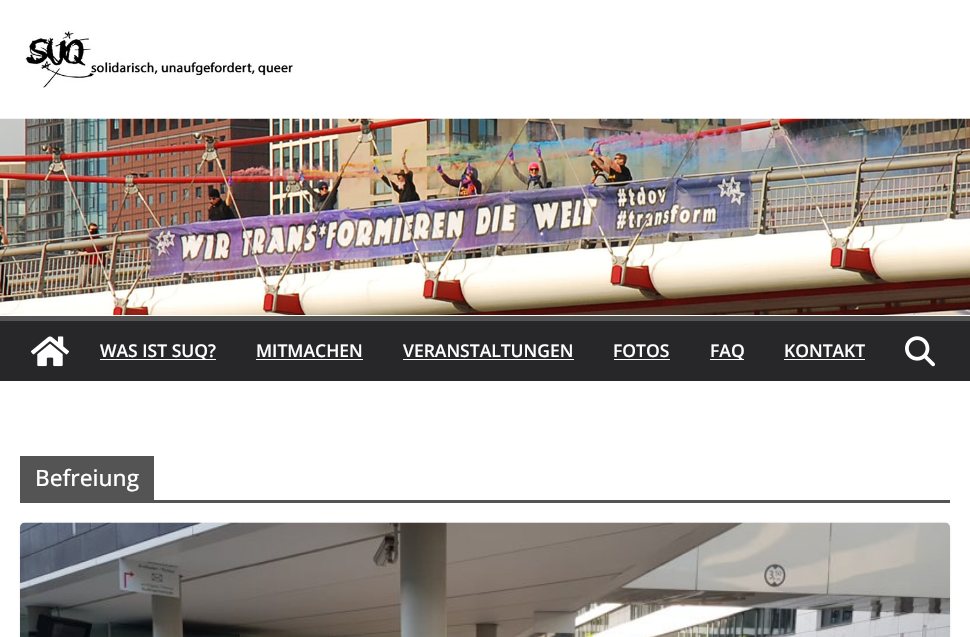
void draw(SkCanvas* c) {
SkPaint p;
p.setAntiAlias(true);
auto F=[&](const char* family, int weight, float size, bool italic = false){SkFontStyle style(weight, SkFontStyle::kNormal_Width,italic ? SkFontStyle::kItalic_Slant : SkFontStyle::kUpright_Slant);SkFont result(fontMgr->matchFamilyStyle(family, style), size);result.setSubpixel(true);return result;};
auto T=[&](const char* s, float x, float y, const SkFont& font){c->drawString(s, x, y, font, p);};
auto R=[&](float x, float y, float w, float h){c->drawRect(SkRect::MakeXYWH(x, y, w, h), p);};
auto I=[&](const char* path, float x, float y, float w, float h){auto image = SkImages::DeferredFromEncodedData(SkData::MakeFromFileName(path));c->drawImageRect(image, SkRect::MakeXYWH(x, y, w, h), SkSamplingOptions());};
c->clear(0xffffffff);
I("1.png",25,30,268,58);
I("2.png",0,118,970,197);
p.setColor(0xff27272a);
R(0,321,970,60);
p.setColor(0xff545454);
R(0,316,970,5);
I("3.png",31,336,38,31);
p.setColor(0xffffffff);
R(100,359,116,1);
auto f1 = F("Open Sans",600,17.5);
T("WAS IST SUQ?",100,357,f1);
T("MITMACHEN",256,357,f1);
R(256,359,107,1);
T("VERANSTALTUNGEN",403,357,f1);
R(403,359,171,1);
T("FOTOS",613,357,f1);
R(614,359,56,1);
R(710,359,34,1);
T("FAQ",710,357,f1);
T("KONTAKT",784,357,f1);
R(784,359,81,1);
I("4.png",905,336,30,31);
p.setColor(0xff545454);
R(20,500,930,3);
R(20,456,134,44);
auto f2 = F("Open Sans",500,22.5);
p.setColor(0xffffffff);
T("Befreiung",35,486,f2);
p.setColor(0xffe4e4e7);
p.setMaskFilter(SkMaskFilter::MakeBlur(kNormal_SkBlurStyle, 1));
c->drawRoundRect(SkRect::MakeXYWH(20,523,930,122),5,5,p);
p.setMaskFilter(nullptr);
I("5.png",20,522,930,115);
}
